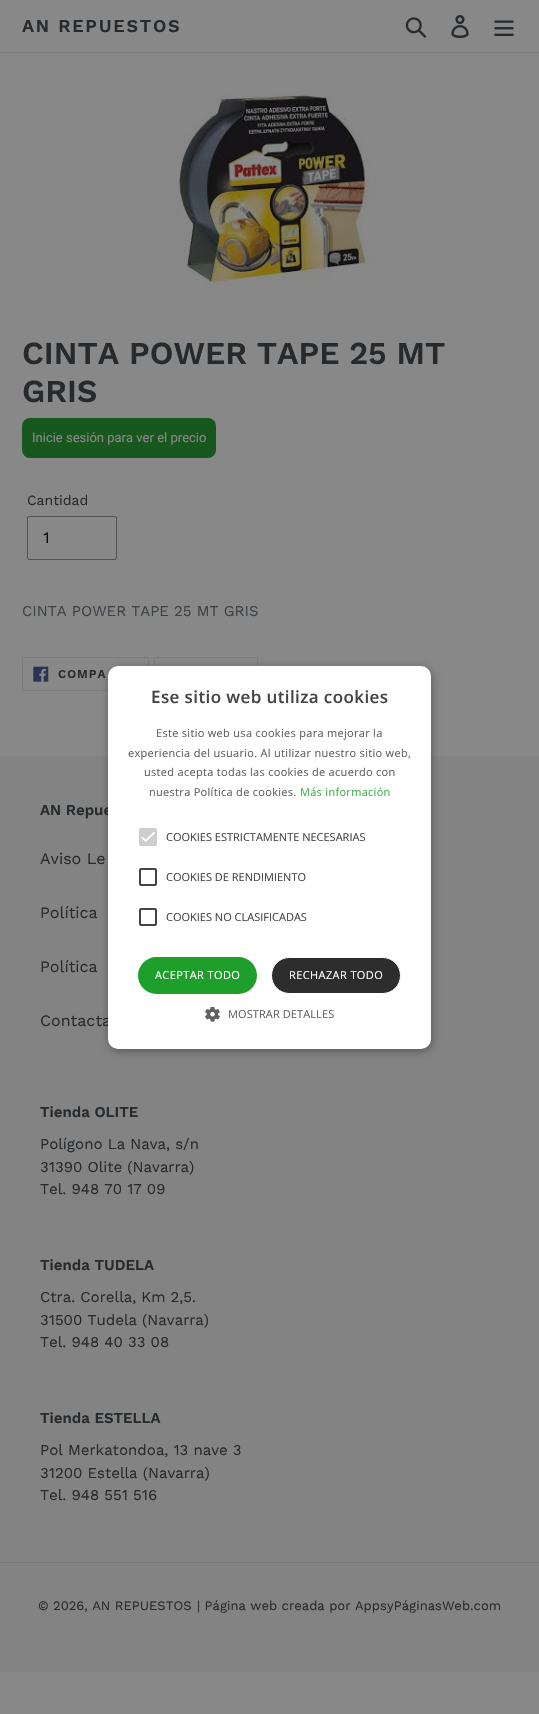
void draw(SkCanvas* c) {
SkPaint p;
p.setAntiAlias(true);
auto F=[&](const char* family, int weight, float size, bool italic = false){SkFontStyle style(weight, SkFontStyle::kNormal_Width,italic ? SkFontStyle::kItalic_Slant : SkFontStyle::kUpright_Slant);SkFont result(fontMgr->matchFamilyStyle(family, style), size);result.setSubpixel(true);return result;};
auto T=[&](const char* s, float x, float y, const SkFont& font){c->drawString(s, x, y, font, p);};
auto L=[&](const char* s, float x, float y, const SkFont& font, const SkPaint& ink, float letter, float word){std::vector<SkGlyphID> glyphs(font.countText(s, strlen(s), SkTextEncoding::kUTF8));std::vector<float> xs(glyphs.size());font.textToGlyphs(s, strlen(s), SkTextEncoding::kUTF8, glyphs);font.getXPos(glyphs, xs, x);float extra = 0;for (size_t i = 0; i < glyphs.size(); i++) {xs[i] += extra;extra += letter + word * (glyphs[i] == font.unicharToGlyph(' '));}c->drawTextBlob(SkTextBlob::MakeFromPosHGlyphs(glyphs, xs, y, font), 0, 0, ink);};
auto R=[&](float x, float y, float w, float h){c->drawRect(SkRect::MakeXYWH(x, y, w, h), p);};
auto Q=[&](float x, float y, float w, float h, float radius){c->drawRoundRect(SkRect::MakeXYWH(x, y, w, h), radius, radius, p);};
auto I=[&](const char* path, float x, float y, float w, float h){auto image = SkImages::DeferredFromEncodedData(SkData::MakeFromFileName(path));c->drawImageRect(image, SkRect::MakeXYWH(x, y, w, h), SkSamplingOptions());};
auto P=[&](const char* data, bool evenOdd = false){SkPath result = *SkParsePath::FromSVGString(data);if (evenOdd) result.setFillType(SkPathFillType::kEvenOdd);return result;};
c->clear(0xff888888);
p.setColor(0xff7d7d7e);
R(0,52,539,1);
auto f1 = F("Work Sans",600,18);
p.setColor(0xff272a2c);
L("AN REPUESTOS",22,32,f1,p,1.75,0);
I("1.png",405,17,22,21);
I("2.png",451,15,18,23);
I("3.png",494,20,20,16);
I("4.png",176,94,201,201);
auto f2 = F("Work Sans",600,32);
T("CINTA POWER TAPE 25 MT",22,364,f2);
T("GRIS",22,402,f2);
p.setColor(0xff18581e);
Q(22,418,194,40,8);
auto f3 = F("Roboto",400,13);
p.setColor(0xff888888);
T("Inicie sesión para ver el precio",32,442,f3);
auto f4 = F("Work Sans",400,14);
p.setColor(0xff272a2c);
T("Cantidad",27,505,f4);
p.setStroke(true);
p.setStrokeWidth(1);
p.setColor(0xff535353);
c->drawRoundRect(SkRect::MakeXYWH(27.5,516.5,89,43),1.5,1.5,p);
auto f5 = F("Work Sans",400,16);
p.setStroke(false);
p.setColor(0xff090909);
T("1",43,543,f5);
auto f6 = F("Work Sans",400,15);
p.setColor(0xff3d4246);
T("CINTA POWER TAPE 25 MT GRIS",22,616,f6);
p.setStroke(true);
p.setColor(0xff7d7d7e);
c->drawRoundRect(SkRect::MakeXYWH(22.5,657.5,126,33),1.5,1.5,p);
I("5.png",33,666,16,16);
auto f7 = F("Work Sans",600,12);
p.setStroke(false);
p.setColor(0xff272a2c);
L("COMPA",58,678,f7,p,1,0);
p.setStroke(true);
p.setColor(0xff7d7d7e);
c->drawRoundRect(SkRect::MakeXYWH(154.5,657.5,103,33),1.5,1.5,p);
p.setStroke(false);
p.setColor(0xff838383);
R(0,756,539,916);
auto f8 = F("Work Sans",600,15);
p.setColor(0xff272a2c);
T("AN Repue",40,815,f8);
T("Aviso Le",40,864,f5);
T("Política",40,918,f5);
T("Política",40,972,f5);
T("Contacta",40,1026,f5);
T("Tienda OLITE",40,1117,f8);
T("Polígono La Nava, s/n",40,1149,f6);
T("31390 Olite (Navarra)",40,1172,f6);
T("Tel. 948 70 17 09",40,1194,f6);
T("Tienda TUDELA",40,1270,f8);
T("Ctra. Corella, Km 2,5.",40,1302,f6);
T("31500 Tudela (Navarra)",40,1325,f6);
T("Tel. 948 40 33 08",40,1347,f6);
T("Tienda ESTELLA",40,1423,f8);
T("Pol Merkatondoa, 13 nave 3",40,1455,f6);
T("31200 Estella (Navarra)",40,1478,f6);
T("Tel. 948 551 516",40,1500,f6);
p.setColor(0xff777777);
R(0,1562,539,1);
auto f9 = F("Work Sans",400,13);
p.setColor(0xff272a2c);
T("© 2026, AN REPUESTOS",38,1610,f9);
T("| Página web creada por AppsyPáginasWeb.com",197,1610,f9);
p.setColor(0x59000000);
p.setMaskFilter(SkMaskFilter::MakeBlur(kNormal_SkBlurStyle, 4));
c->drawRoundRect(SkRect::MakeXYWH(109,668,323,383),10,10,p);
p.setMaskFilter(nullptr);
p.setColor(0xffffffff);
Q(108,666,323,383,10);
auto f10 = F("Open Sans",600,17);
p.setColor(0xff444444);
L("Ese sitio web utiliza cookies",151,703,f10,p,.4,0);
auto f11 = F("Open Sans",400,11);
p.setColor(0xff606060);
L("Este sitio web usa cookies para mejorar la",156,737,f11,p,.3,0);
L("experiencia del usuario. Al utilizar nuestro sitio web,",128,757,f11,p,.3,0);
L("usted acepta todas las cookies de acuerdo con",144,776,f11,p,.3,0);
L("nuestra Política de cookies.",149,796,f11,p,.3,0);
p.setColor(0xff40ad4b);
L("Más información",300,796,f11,p,.3,0);
p.setColor(0xffcecece);
Q(139,828,18,18,2);
p.setStroke(true);
p.setStrokeWidth(1.8);
p.setColor(0xffffffff);
c->drawPath(P("M142 837l3.5 4l9-8.5"),p);
p.setStroke(false);
p.setColor(0xff444444);
T("COOKIES ESTRICTAMENTE NECESARIAS",166,841,f11);
p.setStroke(true);
p.setStrokeWidth(2);
c->drawRoundRect(SkRect::MakeXYWH(140,869,16,16),1,1,p);
p.setStroke(false);
T("COOKIES DE RENDIMIENTO",166,881,f11);
p.setStroke(true);
c->drawRoundRect(SkRect::MakeXYWH(140,909,16,16),1,1,p);
p.setStroke(false);
T("COOKIES NO CLASIFICADAS",166,921,f11);
p.setColor(0xff1e9f2b);
Q(138,957,119,37,18.5);
p.setColor(0xffffffff);
L("ACEPTAR TODO",155,979,f11,p,.4,0);
p.setColor(0xff2d2d2d);
c->drawRoundRect(SkRect::MakeXYWH(271.5,957.5,129,36),18,18,p);
p.setStroke(true);
p.setStrokeWidth(1);
p.setColor(0xffffffff);
c->drawRoundRect(SkRect::MakeXYWH(271.5,957.5,129,36),18,18,p);
p.setStroke(false);
L("RECHAZAR TODO",289,979,f11,p,.4,0);
I("6.png",205,1007,15,15);
p.setColor(0xff606060);
L("MOSTRAR DETALLES",228,1018,f11,p,.1,0);
}
